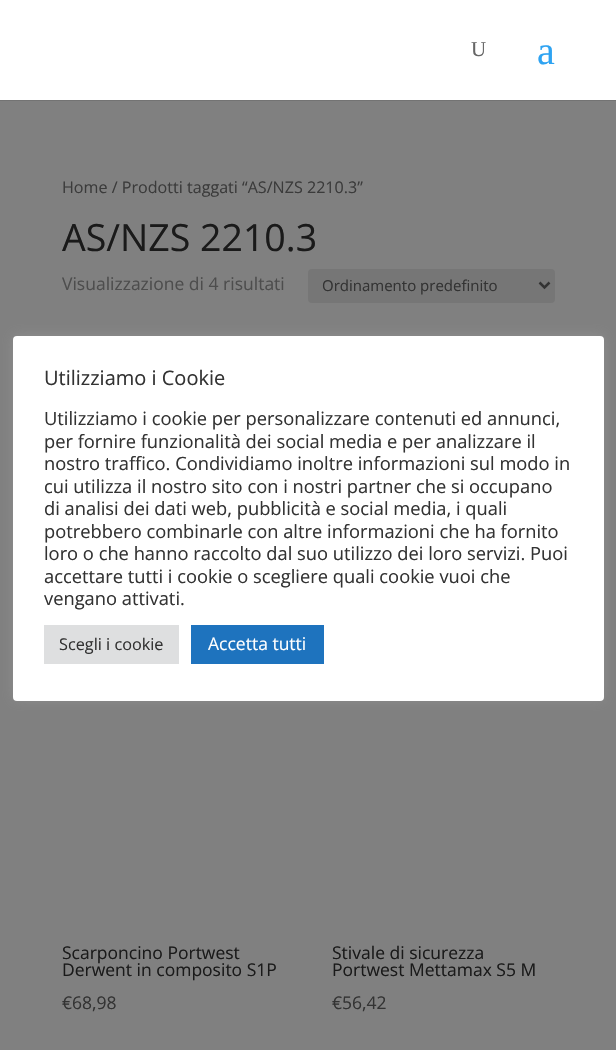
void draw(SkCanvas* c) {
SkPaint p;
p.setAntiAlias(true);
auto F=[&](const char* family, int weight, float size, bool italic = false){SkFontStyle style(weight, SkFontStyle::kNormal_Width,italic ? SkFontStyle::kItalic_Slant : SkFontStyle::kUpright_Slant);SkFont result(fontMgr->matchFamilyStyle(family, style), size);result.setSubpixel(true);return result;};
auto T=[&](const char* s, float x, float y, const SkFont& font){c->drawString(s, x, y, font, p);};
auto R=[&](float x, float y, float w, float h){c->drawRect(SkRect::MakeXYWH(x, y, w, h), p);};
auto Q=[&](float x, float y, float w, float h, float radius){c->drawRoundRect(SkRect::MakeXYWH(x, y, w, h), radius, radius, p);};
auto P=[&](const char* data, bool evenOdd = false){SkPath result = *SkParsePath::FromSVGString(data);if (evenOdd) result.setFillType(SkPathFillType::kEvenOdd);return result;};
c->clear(0xff808080);
p.setColor(0xff737373);
R(0,100,616,1);
p.setColor(0xffffffff);
R(0,0,616,100);
auto f1 = F("Liberation Serif",400,21);
p.setColor(0xff666666);
T("U",471,56,f1);
auto f2 = F("Liberation Serif",400,40);
p.setColor(0xff2ea3f2);
T("a",537,64,f2);
auto f3 = F("Open Sans",400,16.1);
p.setColor(0xff3b3b3b);
T("Home / Prodotti taggati “AS/NZS 2210.3”",62,193,f3);
auto f4 = F("Open Sans",400,37.5);
p.setColor(0xff1a1a1a);
T("AS/NZS 2210.3",62,251,f4);
auto f5 = F("Open Sans",400,17.5);
p.setColor(0xff4d4d4d);
T("Visualizzazione di 4 risultati",62,290,f5);
p.setColor(0xff767676);
Q(308,269,247,34,4);
p.setStroke(true);
p.setStrokeWidth(2.5);
p.setColor(0xff333333);
c->drawPath(P("M539.5 282.5l5 5l5-5"),p);
auto f6 = F("Open Sans",400,15);
p.setStroke(false);
T("Ordinamento predefinito",322,291,f6);
p.setColor(0xff1a1a1a);
T("Scarponcino Portwest",62,959,f5);
T("Derwent in composito S1P",62,976,f5);
p.setColor(0xff333333);
T("€68,98",62,1009,f5);
p.setColor(0xff1a1a1a);
T("Stivale di sicurezza",332,959,f5);
T("Portwest Mettamax S5 M",332,976,f5);
p.setColor(0xff333333);
T("€56,42",332,1009,f5);
p.setColor(0x4dacabab);
p.setMaskFilter(SkMaskFilter::MakeBlur(kNormal_SkBlurStyle, 6));
c->drawRoundRect(SkRect::MakeXYWH(13,335,591,365),4,4,p);
p.setMaskFilter(nullptr);
p.setColor(0xffffffff);
Q(13,336,591,365,4);
auto f7 = F("Open Sans",400,20);
p.setColor(0xff333333);
T("Utilizziamo i Cookie",44,385,f7);
auto f8 = F("Open Sans",400,18.3);
T("Utilizziamo i cookie per personalizzare contenuti ed annunci,",44,425,f8);
T("per fornire funzionalità dei social media e per analizzare il",44,448,f8);
T("nostro traffico. Condividiamo inoltre informazioni sul modo in",44,470,f8);
T("cui utilizza il nostro sito con i nostri partner che si occupano",44,493,f8);
T("di analisi dei dati web, pubblicità e social media, i quali",44,515,f8);
T("potrebbero combinarle con altre informazioni che ha fornito",44,538,f8);
T("loro o che hanno raccolto dal suo utilizzo dei loro servizi. Puoi",44,560,f8);
T("accettare tutti i cookie o scegliere quali cookie vuoi che",44,583,f8);
T("vengano attivati.",44,605,f8);
p.setColor(0xffdedfe0);
R(44,625,135,39);
auto f9 = F("Open Sans",400,16.25);
p.setColor(0xff333333);
T("Scegli i cookie",59,650,f9);
p.setColor(0xff1e73be);
R(191,625,133,39);
p.setColor(0xffffffff);
T("Accetta tutti",208,650,f5);
}
